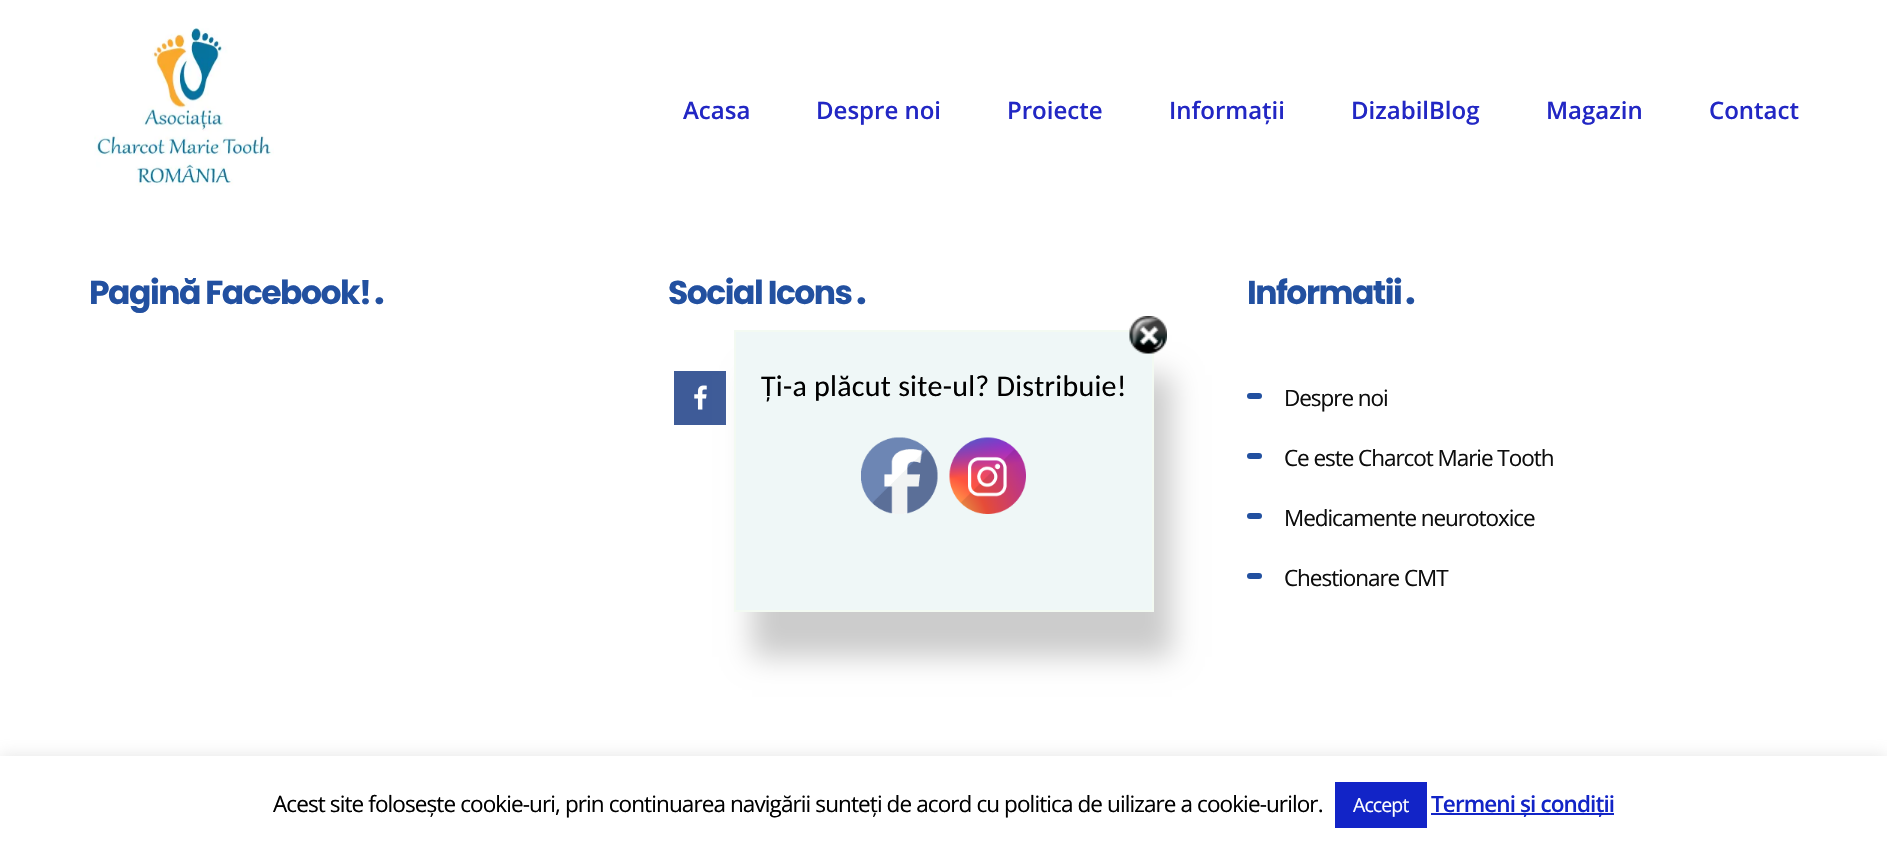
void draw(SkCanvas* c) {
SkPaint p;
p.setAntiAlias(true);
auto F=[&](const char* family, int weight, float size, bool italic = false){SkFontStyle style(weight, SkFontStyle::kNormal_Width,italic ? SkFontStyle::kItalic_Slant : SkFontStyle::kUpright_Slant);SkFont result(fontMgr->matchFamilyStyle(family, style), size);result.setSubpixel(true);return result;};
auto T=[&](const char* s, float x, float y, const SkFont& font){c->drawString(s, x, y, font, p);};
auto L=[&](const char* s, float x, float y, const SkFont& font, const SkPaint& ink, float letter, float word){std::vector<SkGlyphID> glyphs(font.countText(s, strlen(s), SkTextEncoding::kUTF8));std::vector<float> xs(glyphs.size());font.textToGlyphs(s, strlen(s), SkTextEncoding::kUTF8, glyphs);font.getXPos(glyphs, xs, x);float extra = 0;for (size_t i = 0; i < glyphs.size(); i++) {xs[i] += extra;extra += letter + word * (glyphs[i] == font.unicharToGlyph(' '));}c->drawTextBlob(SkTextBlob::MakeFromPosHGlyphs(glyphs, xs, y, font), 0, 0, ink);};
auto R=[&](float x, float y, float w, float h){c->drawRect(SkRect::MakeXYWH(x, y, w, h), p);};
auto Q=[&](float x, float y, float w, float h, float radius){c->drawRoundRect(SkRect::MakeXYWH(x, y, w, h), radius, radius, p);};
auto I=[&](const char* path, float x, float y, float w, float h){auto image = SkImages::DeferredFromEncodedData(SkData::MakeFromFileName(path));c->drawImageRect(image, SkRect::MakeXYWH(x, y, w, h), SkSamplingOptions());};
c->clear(0xffffffff);
I("1.png",94,28,180,158);
auto f1 = F("Open Sans",600,24);
p.setColor(0xff2227c4);
T("Acasa",683,119,f1);
T("Despre noi",816,119,f1);
T("Proiecte",1007,119,f1);
T("Informații",1169,119,f1);
T("DizabilBlog",1351,119,f1);
T("Magazin",1546,119,f1);
T("Contact",1709,119,f1);
auto f2 = F("Poppins",700,33);
p.setColor(0xff2250a0);
L("Pagină Facebook!",89,304,f2,p,-1.5,0);
auto f3 = F("Poppins",700,38);
L(".",374,304,f3,p,-1.5,0);
L("Social Icons",668,304,f2,p,-1.5,0);
L(".",856,304,f3,p,-1.5,0);
p.setColor(0xff3e5b98);
R(674,371,52,54);
I("2.png",694,385,13,25);
p.setColor(0xff2250a0);
L("Informatii",1247,304,f2,p,-1.5,0);
L(".",1405,304,f3,p,-1.5,0);
Q(1247,393,15,6,3);
auto f4 = F("Open Sans",400,22.5);
p.setColor(0xff0d0d0d);
L("Despre noi",1284,406,f4,p,-1.05,0);
p.setColor(0xff2250a0);
Q(1247,453,15,6,3);
p.setColor(0xff0d0d0d);
L("Ce este Charcot Marie Tooth",1284,466,f4,p,-1.05,0);
p.setColor(0xff2250a0);
Q(1247,513,15,6,3);
p.setColor(0xff0d0d0d);
L("Medicamente neurotoxice",1284,526,f4,p,-1.05,0);
p.setColor(0xff2250a0);
Q(1247,573,15,6,3);
p.setColor(0xff0d0d0d);
L("Chestionare CMT",1284,586,f4,p,-1.05,0);
p.setColor(0xffcccccc);
p.setMaskFilter(SkMaskFilter::MakeBlur(kNormal_SkBlurStyle, 13.5));
c->drawRect(SkRect::MakeXYWH(752,375,420,282),p);
p.setMaskFilter(nullptr);
p.setColor(0xffeff7f7);
c->drawRect(SkRect::MakeXYWH(735,331,418,280),p);
p.setStroke(true);
p.setStrokeWidth(2);
p.setColor(0xfff3faf2);
c->drawRect(SkRect::MakeXYWH(735,331,418,280),p);
I("3.png",1129,316,38,38);
auto f5 = F("Carlito",400,30);
p.setStroke(false);
p.setColor(0xff000000);
L("Ți-a plăcut site-ul? Distribuie!",761,396,f5,p,.25,0);
I("4.png",861,437,77,77);
I("5.png",949,437,77,77);
p.setColor(0x4dacabab);
p.setMaskFilter(SkMaskFilter::MakeBlur(kNormal_SkBlurStyle, 7.5));
c->drawRect(SkRect::MakeXYWH(0,755,1887,90),p);
p.setMaskFilter(nullptr);
p.setColor(0xffffffff);
R(0,756,1887,89);
p.setColor(0xff000000);
L("Acest site folosește cookie-uri, prin continuarea navigării sunteți de acord cu politica de uilizare a cookie-urilor.",273,812,f4,p,-.9,0);
p.setColor(0xff1224c7);
R(1335,782,92,46);
auto f6 = F("Open Sans",400,19.5);
p.setColor(0xffffffff);
L("Accept",1353,812,f6,p,-.9,0);
p.setColor(0xff1224c7);
R(1431,813,183,2);
auto f7 = F("Open Sans",600,22.5);
L("Termeni și condiții",1431,812,f7,p,-.9,0);
}
